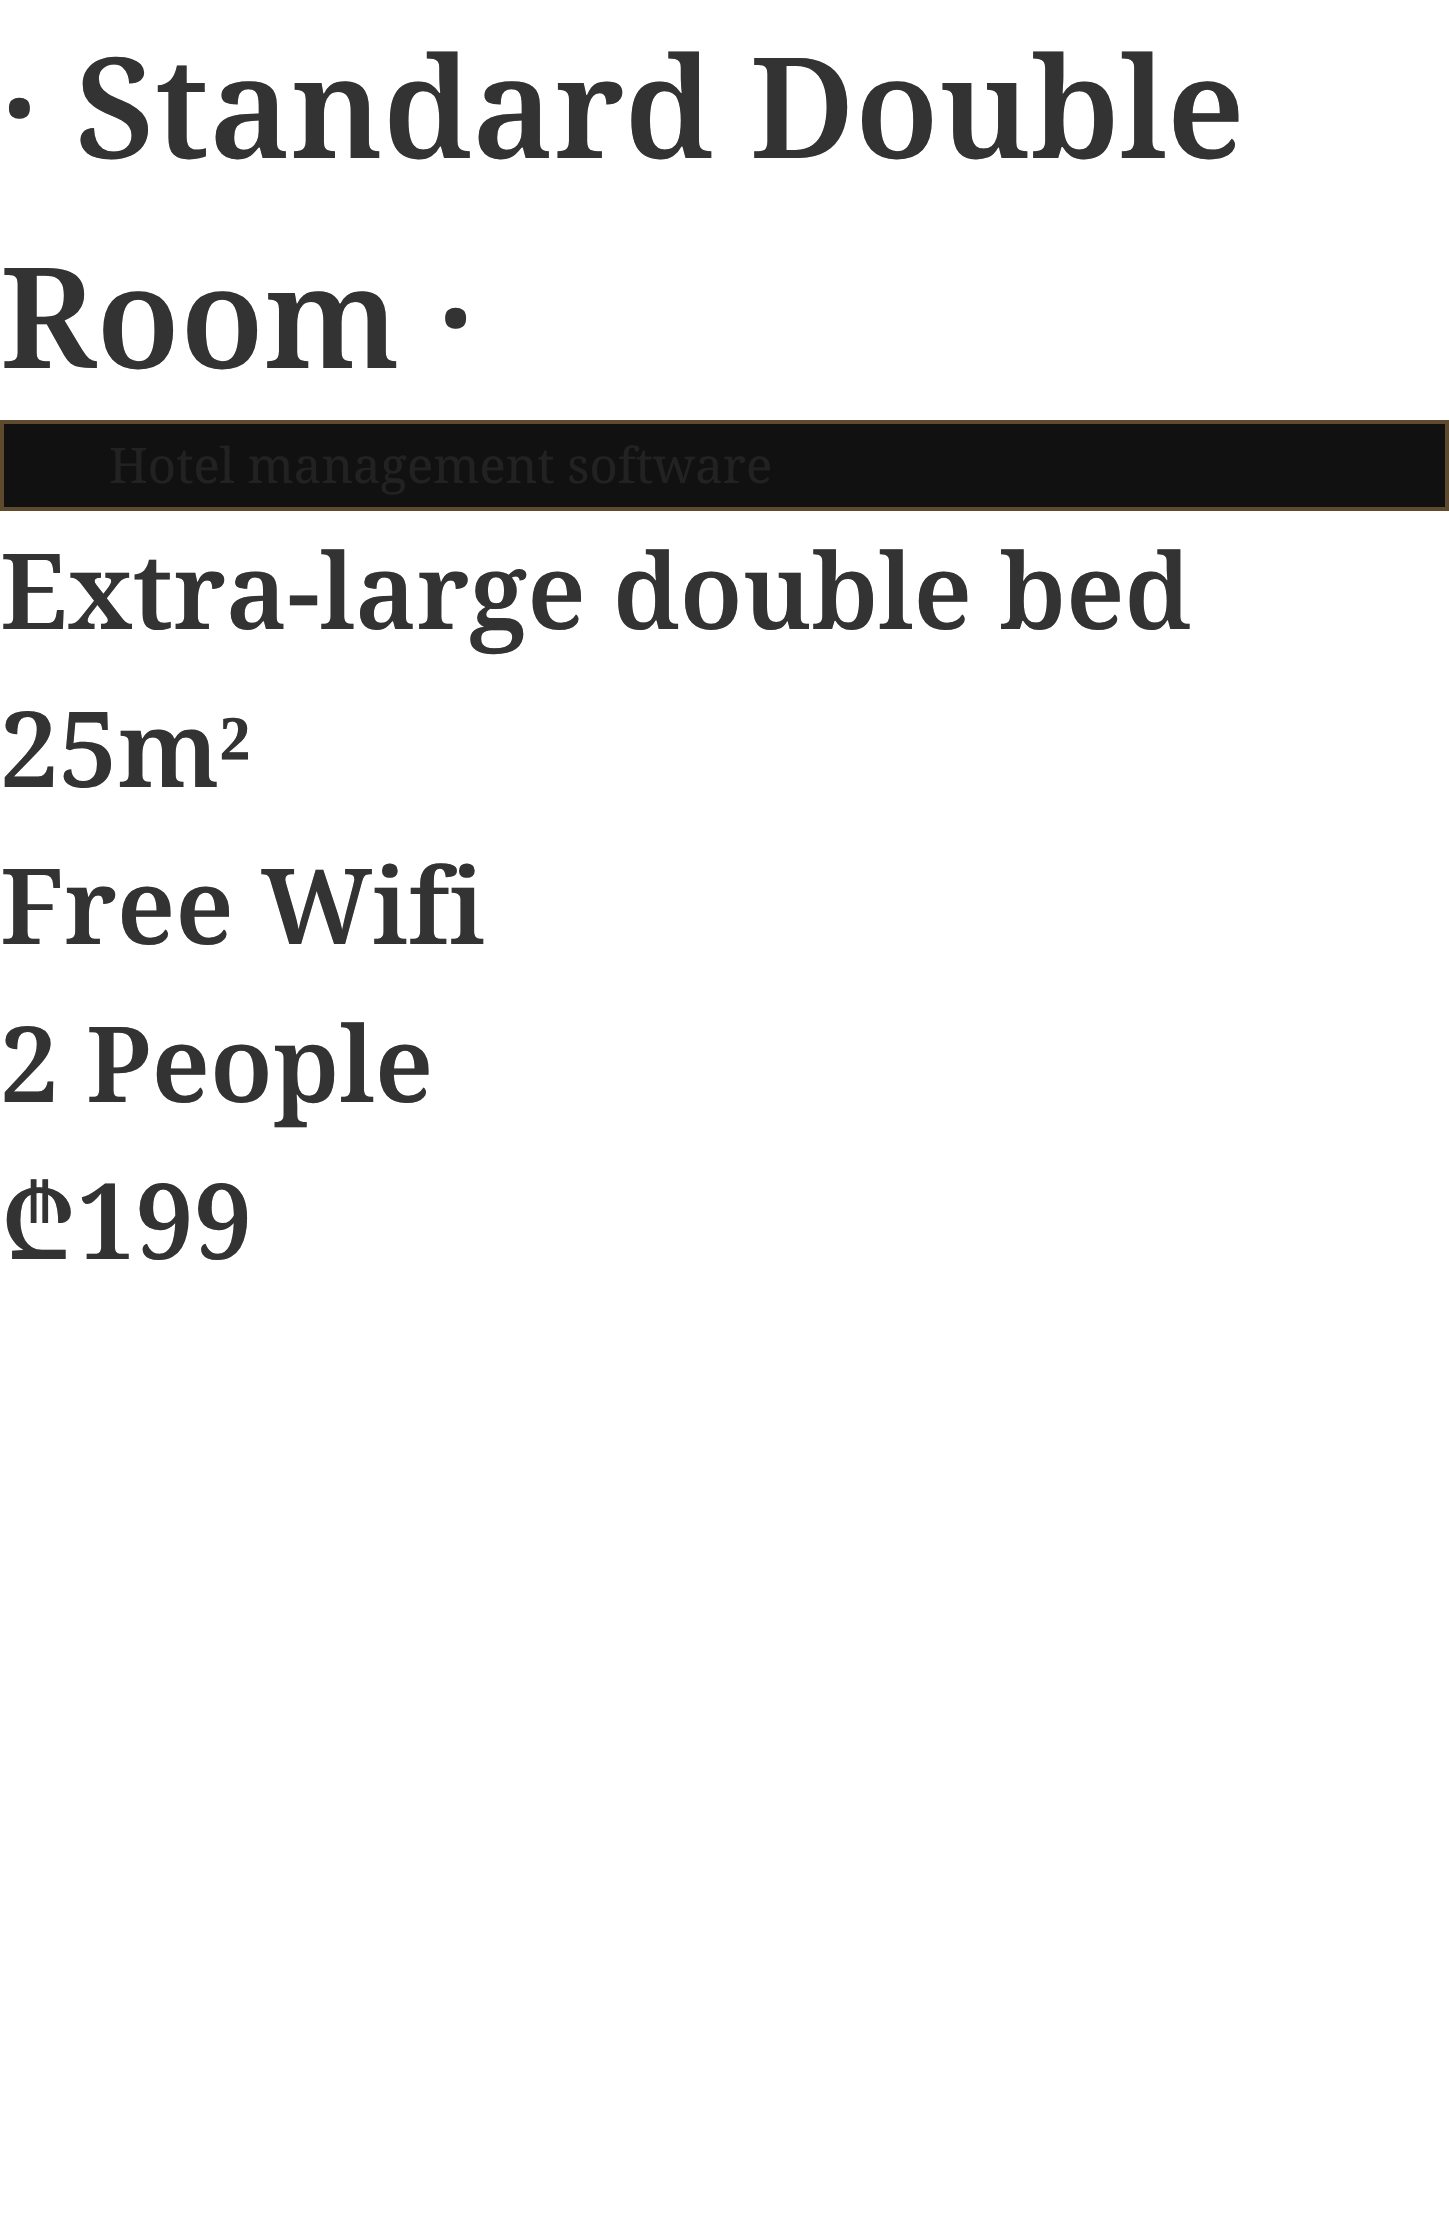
void draw(SkCanvas* c) {
SkPaint p;
p.setAntiAlias(true);
auto F=[&](const char* family, int weight, float size, bool italic = false){SkFontStyle style(weight, SkFontStyle::kNormal_Width,italic ? SkFontStyle::kItalic_Slant : SkFontStyle::kUpright_Slant);SkFont result(fontMgr->matchFamilyStyle(family, style), size);result.setSubpixel(true);return result;};
auto T=[&](const char* s, float x, float y, const SkFont& font){c->drawString(s, x, y, font, p);};
c->clear(0xffffffff);
auto f1 = F("Noto Serif Georgian",600,140);
p.setColor(0xff333333);
T("· Standard Double",0,158,f1);
T("Room ·",0,368,f1);
p.setColor(0xff111111);
c->drawRect(SkRect::MakeXYWH(2,422,1445,87),p);
p.setStroke(true);
p.setStrokeWidth(4);
p.setColor(0xff5e4b2d);
c->drawRect(SkRect::MakeXYWH(2,422,1445,87),p);
auto f2 = F("Noto Serif Georgian",400,49);
p.setStroke(false);
p.setColor(0xff222222);
T("Hotel management software",109,483,f2);
auto f3 = F("Noto Serif Georgian",600,105);
p.setColor(0xff333333);
T("Extra-large double bed",0,629,f3);
T("25m",0,787,f3);
auto f4 = F("Liberation Serif",700,105);
T("²",219,787,f4);
T("Free Wifi",0,944,f3);
T("2 People",0,1102,f3);
T("₾199",0,1259,f3);
}
